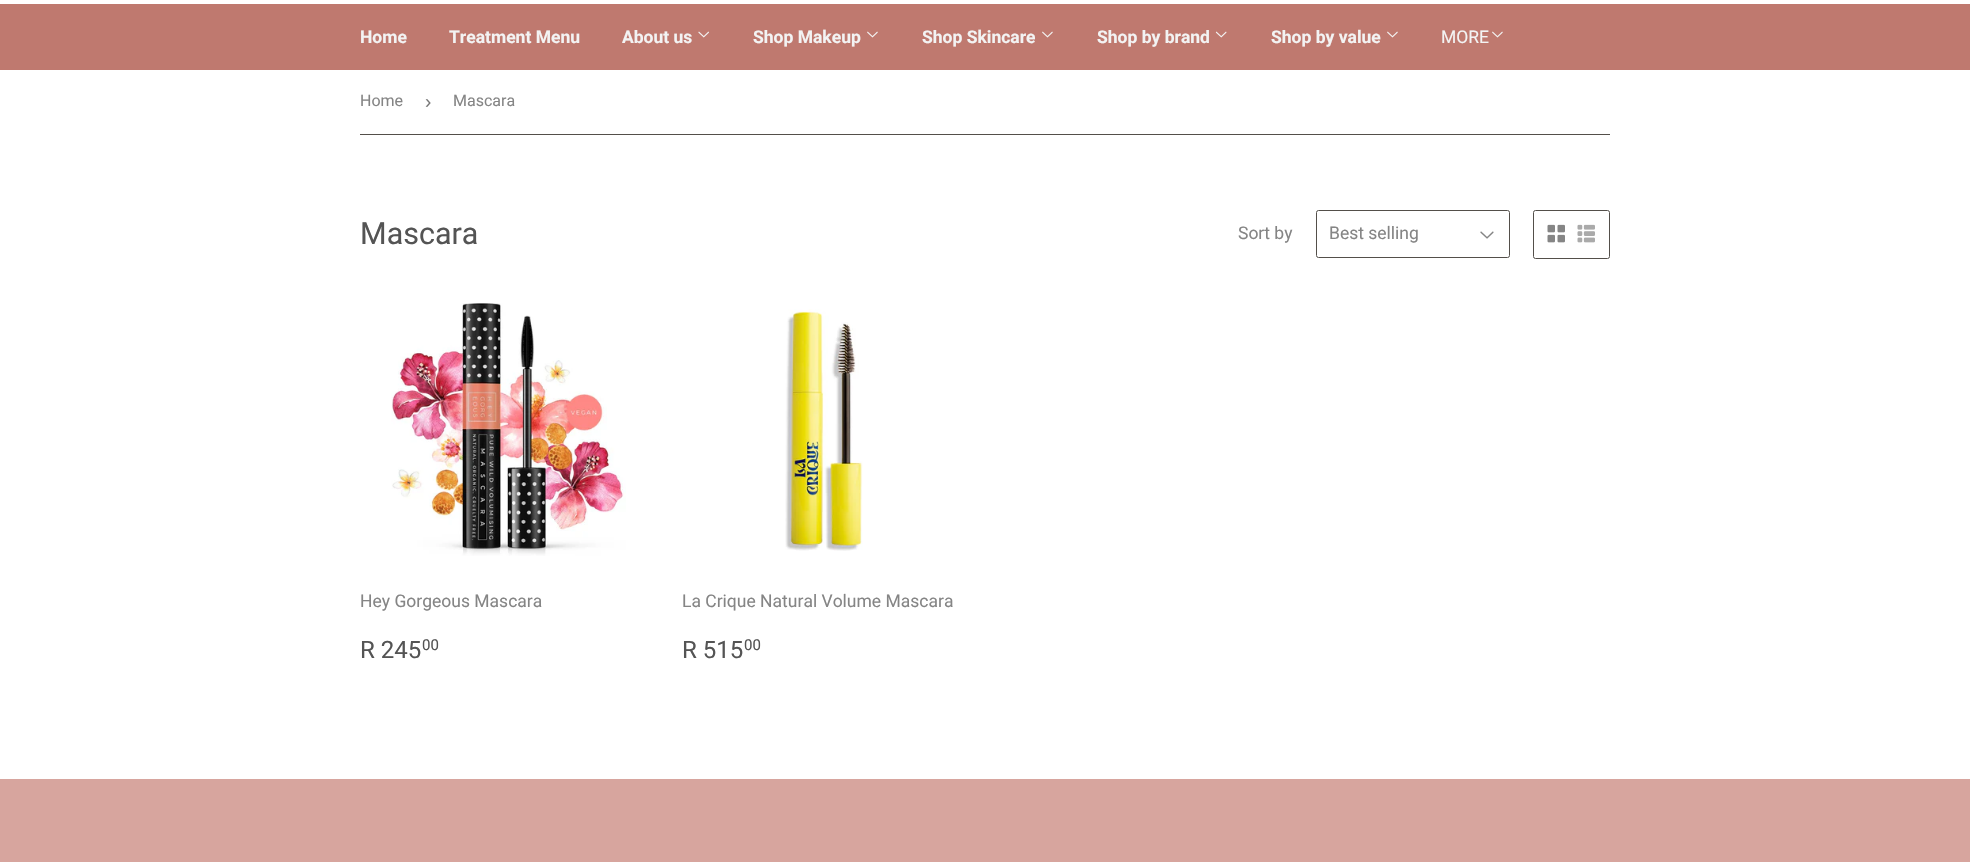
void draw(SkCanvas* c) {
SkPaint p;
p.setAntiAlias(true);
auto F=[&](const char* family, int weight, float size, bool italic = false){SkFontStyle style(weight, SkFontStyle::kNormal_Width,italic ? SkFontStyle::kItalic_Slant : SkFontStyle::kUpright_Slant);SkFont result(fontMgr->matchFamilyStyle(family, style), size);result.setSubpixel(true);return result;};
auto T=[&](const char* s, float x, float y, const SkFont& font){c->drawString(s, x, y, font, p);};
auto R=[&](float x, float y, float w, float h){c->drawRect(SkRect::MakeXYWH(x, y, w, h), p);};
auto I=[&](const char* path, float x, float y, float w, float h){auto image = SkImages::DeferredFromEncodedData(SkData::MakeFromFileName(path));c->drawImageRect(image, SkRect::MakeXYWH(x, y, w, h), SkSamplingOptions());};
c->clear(0xffffffff);
p.setColor(0xffbf796f);
R(0,4,1970,66);
auto f1 = F("Roboto",700,17.5);
p.setColor(0xfff3f3f3);
T("Home",360,43,f1);
T("Treatment Menu",449,43,f1);
T("About us",622,43,f1);
I("1.png",698,31,11,7);
T("Shop Makeup",753,43,f1);
I("2.png",867,31,11,7);
T("Shop Skincare",922,43,f1);
I("2.png",1042,31,11,7);
T("Shop by brand",1097,43,f1);
I("3.png",1215,31,12,7);
T("Shop by value",1271,43,f1);
I("2.png",1387,31,11,7);
auto f2 = F("Roboto",400,17.5);
T("MORE",1441,43,f2);
I("2.png",1492,31,11,7);
p.setColor(0xff534f4a);
R(360,134,1250,1);
auto f3 = F("Roboto",400,16);
p.setColor(0xff858585);
T("Home",360,106,f3);
auto f4 = F("Liberation Sans",400,19);
p.setColor(0xff767676);
T("›",425,108,f4);
p.setColor(0xff858585);
T("Mascara",453,106,f3);
auto f5 = F("Roboto",400,30.5);
p.setColor(0xff545454);
T("Mascara",360,244,f5);
p.setColor(0xff858585);
T("Sort by",1238,239,f2);
I("4.png",1480,231,14,8);
p.setStroke(true);
p.setStrokeWidth(1);
p.setColor(0xff534f4a);
c->drawRoundRect(SkRect::MakeXYWH(1316.5,210.5,193,47),2,2,p);
p.setStroke(false);
p.setColor(0xff858585);
T("Best selling",1329,239,f2);
p.setStroke(true);
p.setColor(0xff534f4a);
c->drawRoundRect(SkRect::MakeXYWH(1533.5,210.5,76,48),2,2,p);
I("5.png",1547,224,18,19);
I("6.png",1577,224,18,19);
I("7.png",391,303,235,253);
p.setStroke(false);
p.setColor(0xff858585);
T("Hey Gorgeous Mascara",360,607,f2);
auto f6 = F("Roboto",400,24);
p.setColor(0xff545454);
T("R 245",360,658,f6);
auto f7 = F("Roboto",400,15);
T("00",422,650,f7);
I("8.png",785,309,78,242);
p.setColor(0xff858585);
T("La Crique Natural Volume Mascara",682,607,f2);
p.setColor(0xff545454);
T("R 515",682,658,f6);
T("00",744,650,f7);
p.setColor(0xffd7a59e);
R(0,779,1970,83);
}
